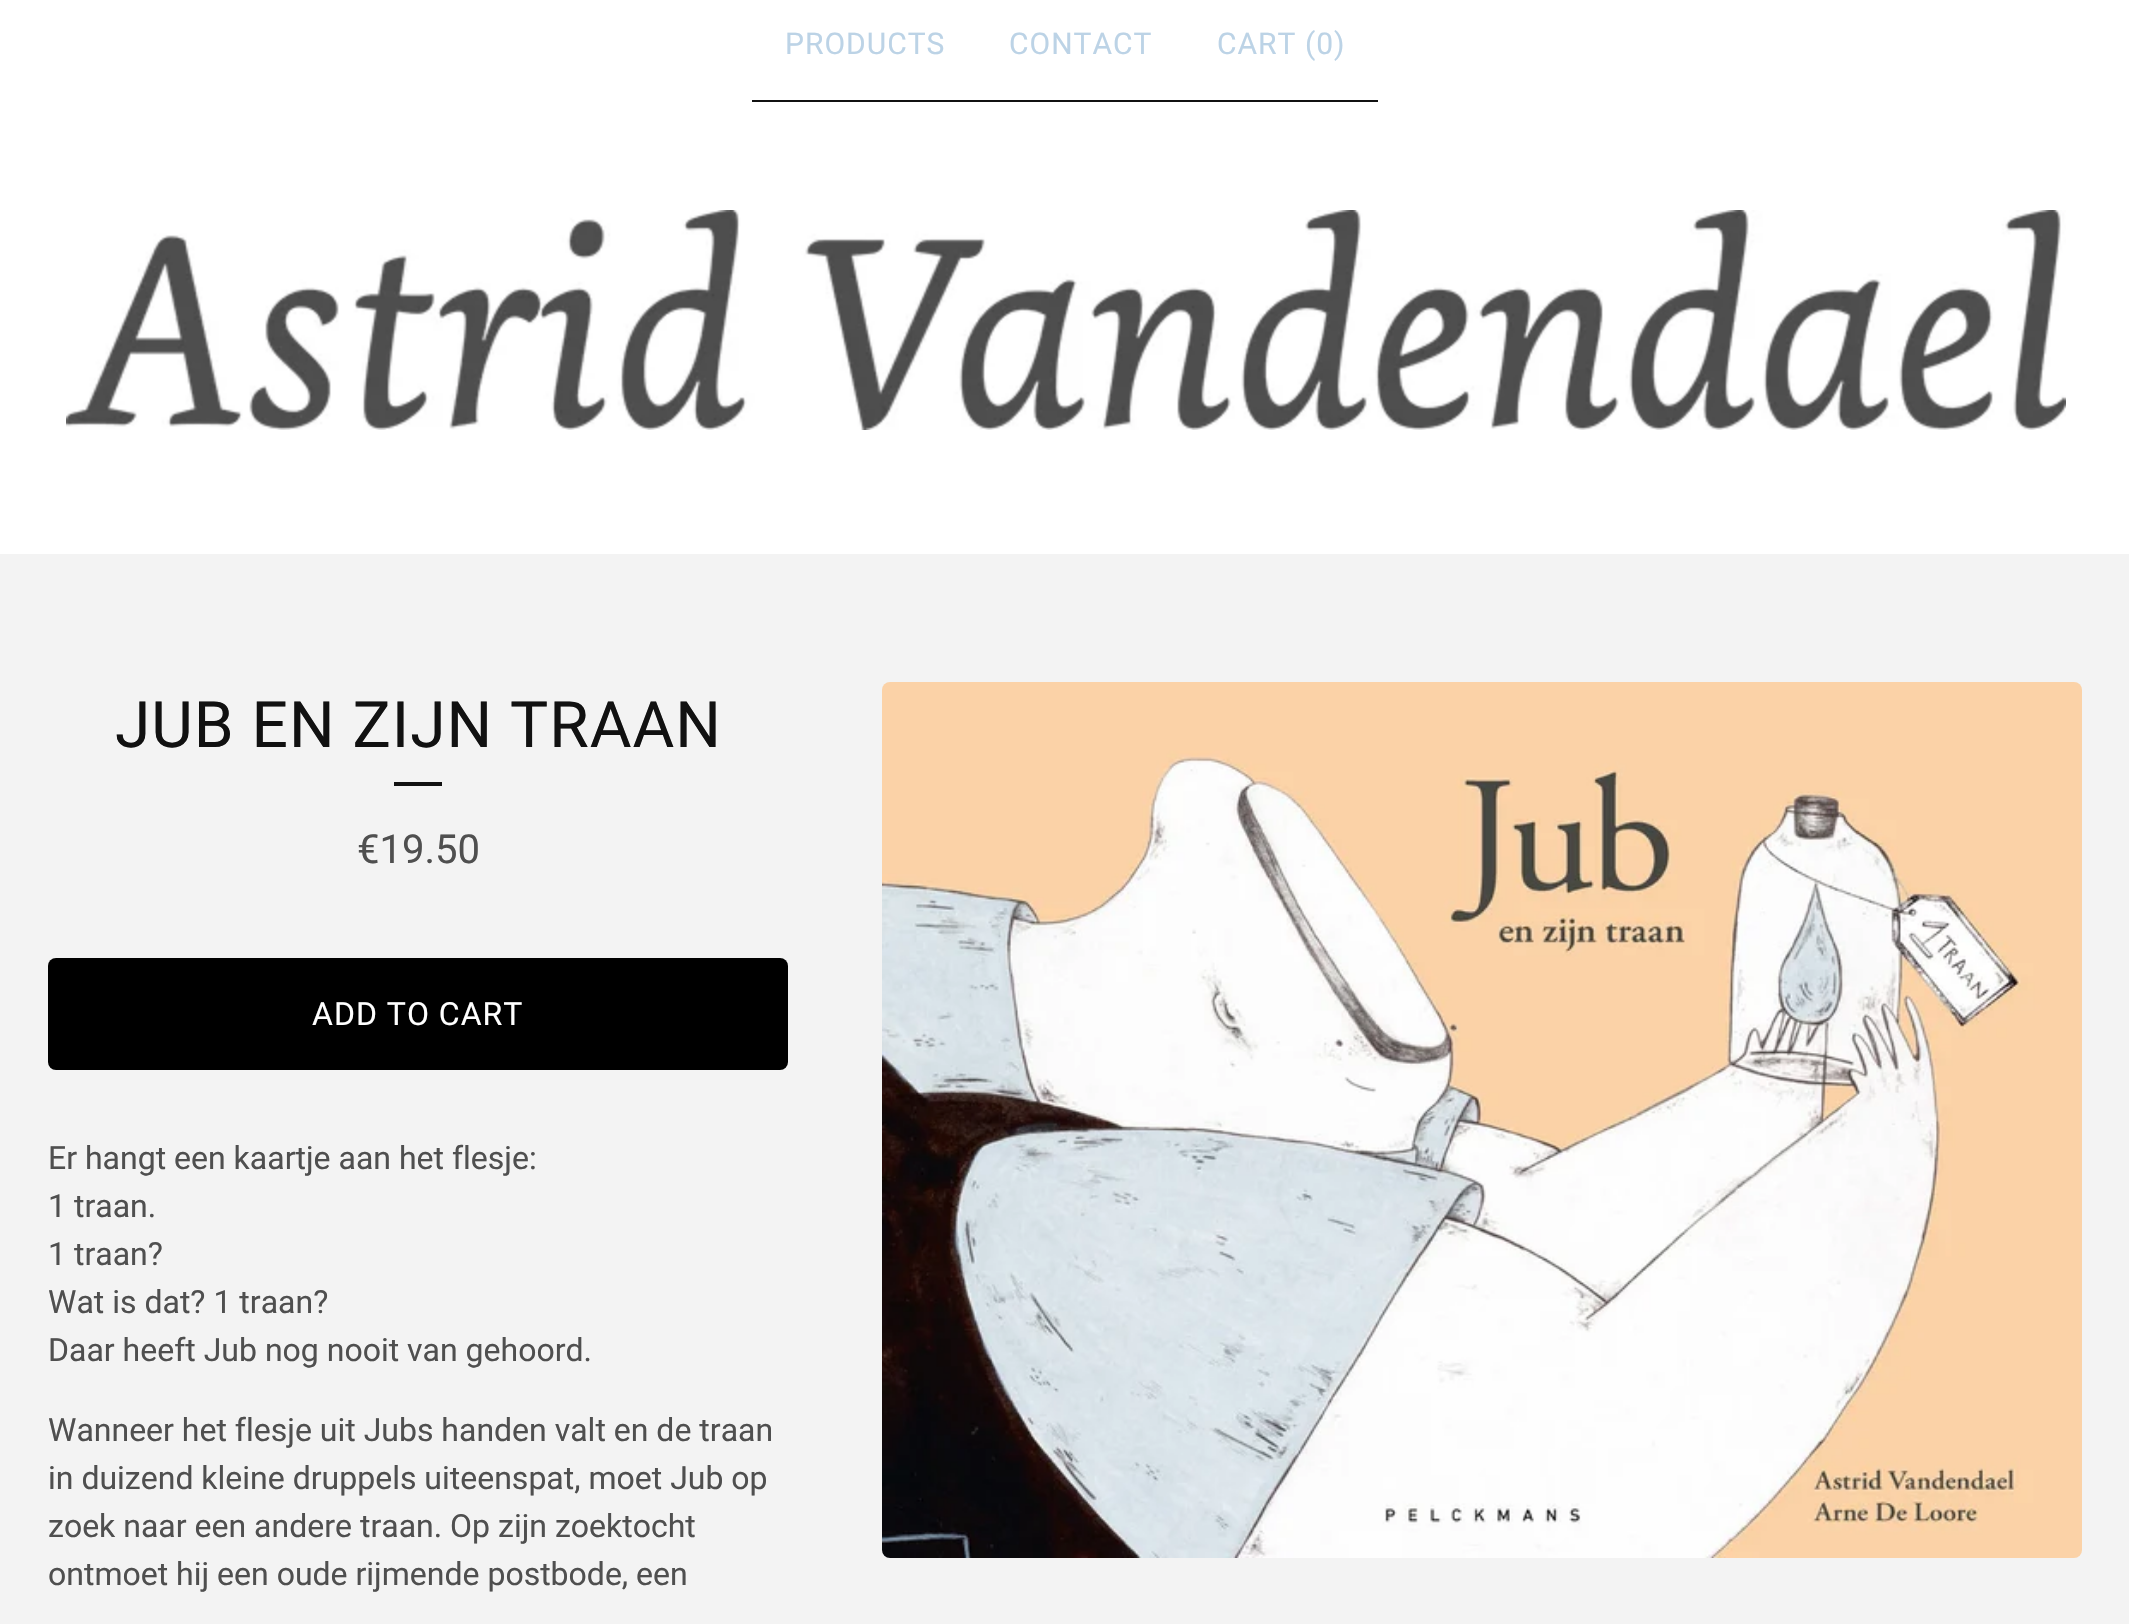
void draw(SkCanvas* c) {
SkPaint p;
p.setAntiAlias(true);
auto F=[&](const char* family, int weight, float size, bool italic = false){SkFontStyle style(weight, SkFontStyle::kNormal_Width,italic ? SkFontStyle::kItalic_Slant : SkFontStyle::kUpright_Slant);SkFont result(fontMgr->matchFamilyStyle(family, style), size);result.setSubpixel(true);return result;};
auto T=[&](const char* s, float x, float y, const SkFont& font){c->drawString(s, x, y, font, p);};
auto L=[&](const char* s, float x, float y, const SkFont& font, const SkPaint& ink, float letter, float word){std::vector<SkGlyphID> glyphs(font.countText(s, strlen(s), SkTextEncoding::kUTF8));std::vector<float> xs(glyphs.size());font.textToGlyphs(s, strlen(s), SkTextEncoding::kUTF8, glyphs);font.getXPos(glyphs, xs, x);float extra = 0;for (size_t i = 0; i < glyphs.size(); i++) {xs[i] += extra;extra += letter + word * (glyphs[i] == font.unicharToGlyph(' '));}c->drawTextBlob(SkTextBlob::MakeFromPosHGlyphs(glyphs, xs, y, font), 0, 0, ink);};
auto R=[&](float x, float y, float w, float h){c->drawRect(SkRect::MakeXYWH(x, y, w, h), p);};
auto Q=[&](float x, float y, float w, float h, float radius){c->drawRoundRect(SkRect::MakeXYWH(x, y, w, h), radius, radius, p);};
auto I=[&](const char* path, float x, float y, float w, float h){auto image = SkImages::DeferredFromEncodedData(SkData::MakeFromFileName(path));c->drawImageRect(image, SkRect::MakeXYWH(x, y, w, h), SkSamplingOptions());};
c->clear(0xffffffff);
p.setColor(0xff111111);
R(752,100,626,2);
auto f1 = F("Roboto",400,30);
p.setColor(0xffbcd3e6);
L("PRODUCTS",785,54,f1,p,1,0);
L("CONTACT",1009,54,f1,p,1,0);
L("CART (0)",1217,54,f1,p,1,0);
I("1.png",66,210,2000,220);
p.setColor(0xfff3f3f3);
R(0,554,2129,1070);
auto f2 = F("Roboto",400,64);
p.setColor(0xff111111);
L("JUB EN ZIJN TRAAN",115,747,f2,p,1,0);
R(394,782,48,4);
auto f3 = F("Roboto",400,40);
p.setColor(0xff4f4f4f);
T("€19.50",357,863,f3);
I("2.png",882,682,1200,876);
p.setColor(0xff000000);
Q(48,958,740,112,8);
auto f4 = F("Roboto",400,32);
p.setColor(0xffffffff);
L("ADD TO CART",312,1025,f4,p,1,0);
p.setColor(0xff4f4f4f);
T("Er hangt een kaartje aan het flesje:",48,1169,f4);
T("1 traan.",48,1217,f4);
T("1 traan?",48,1265,f4);
T("Wat is dat? 1 traan?",48,1313,f4);
T("Daar heeft Jub nog nooit van gehoord.",48,1361,f4);
T("Wanneer het flesje uit Jubs handen valt en de traan",48,1441,f4);
T("in duizend kleine druppels uiteenspat, moet Jub op",48,1489,f4);
T("zoek naar een andere traan. Op zijn zoektocht",48,1537,f4);
T("ontmoet hij een oude rijmende postbode, een",48,1585,f4);
}
